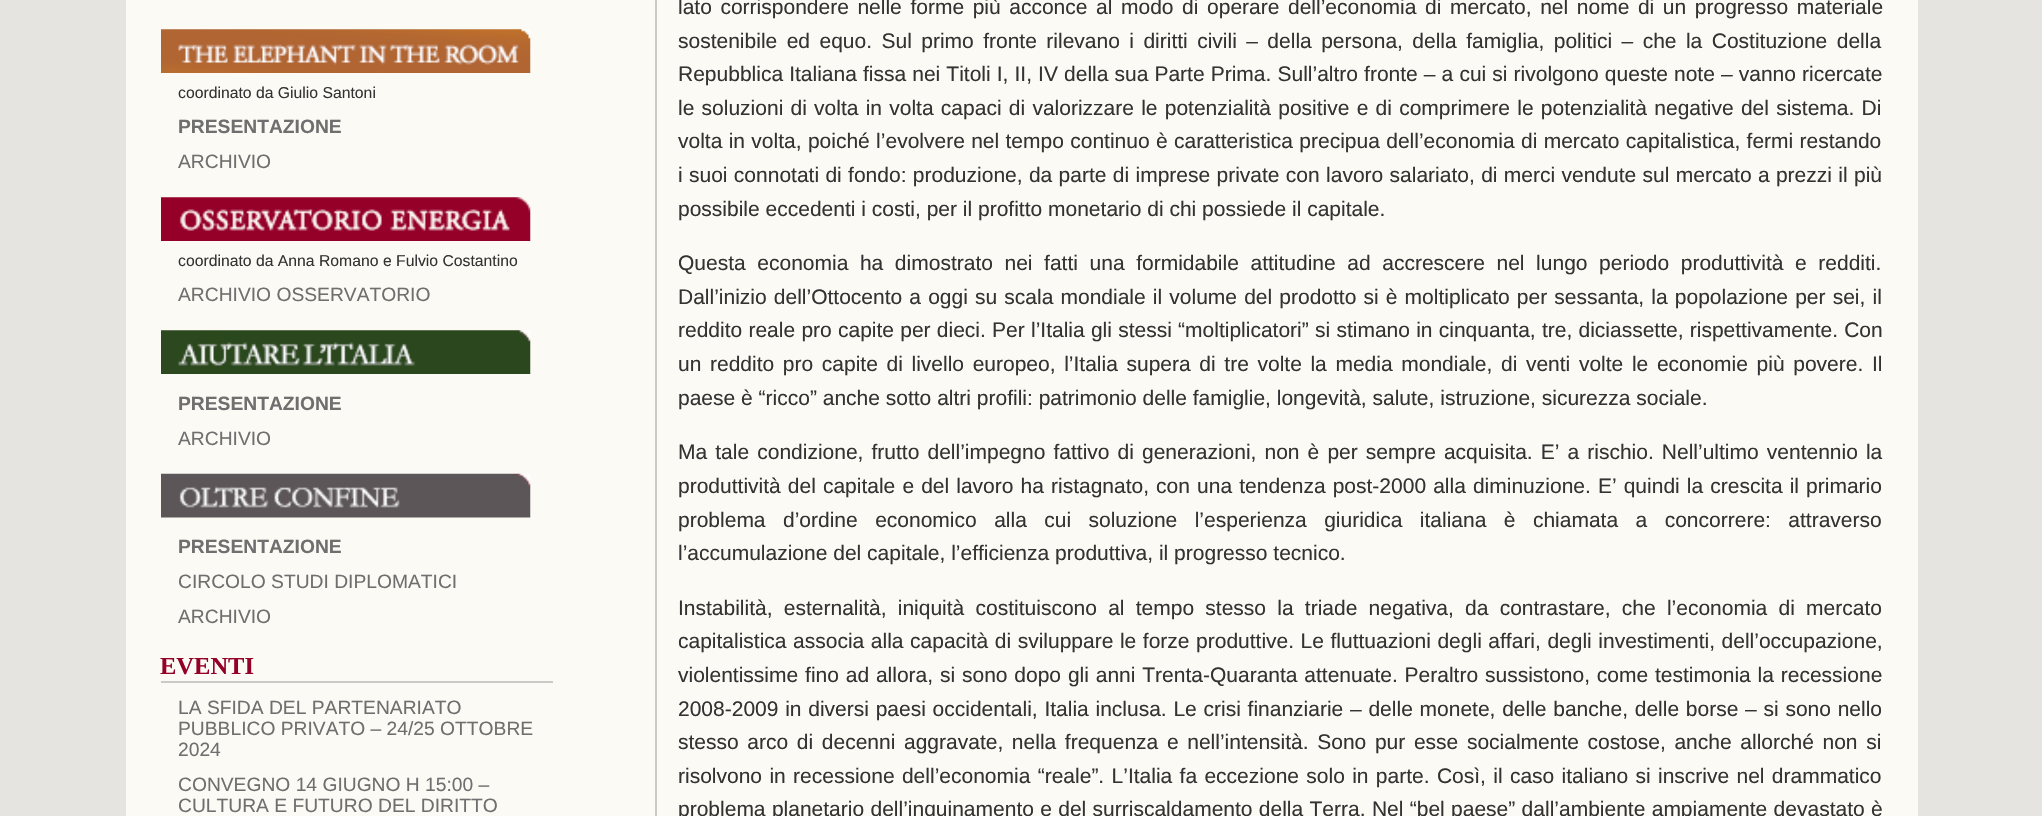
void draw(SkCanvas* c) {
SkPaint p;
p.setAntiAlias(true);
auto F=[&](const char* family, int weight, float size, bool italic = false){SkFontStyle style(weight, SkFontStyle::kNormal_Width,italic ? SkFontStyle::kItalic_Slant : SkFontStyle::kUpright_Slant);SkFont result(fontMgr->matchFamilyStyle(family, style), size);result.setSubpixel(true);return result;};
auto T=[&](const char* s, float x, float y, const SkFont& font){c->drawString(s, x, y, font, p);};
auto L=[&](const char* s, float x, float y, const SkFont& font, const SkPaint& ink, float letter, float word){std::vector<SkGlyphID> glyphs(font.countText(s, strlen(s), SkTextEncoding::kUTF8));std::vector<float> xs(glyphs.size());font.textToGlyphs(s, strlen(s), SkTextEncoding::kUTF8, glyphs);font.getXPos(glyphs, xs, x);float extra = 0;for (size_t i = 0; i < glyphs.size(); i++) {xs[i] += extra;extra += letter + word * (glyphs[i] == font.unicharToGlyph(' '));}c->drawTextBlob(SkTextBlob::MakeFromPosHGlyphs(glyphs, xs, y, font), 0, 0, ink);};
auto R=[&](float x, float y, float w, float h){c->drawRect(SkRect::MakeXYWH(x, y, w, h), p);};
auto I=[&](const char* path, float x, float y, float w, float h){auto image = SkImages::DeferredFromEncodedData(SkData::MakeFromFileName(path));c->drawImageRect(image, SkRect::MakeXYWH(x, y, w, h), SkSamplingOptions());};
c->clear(0xffe6e4e1);
p.setColor(0xfffbfaf4);
R(126,0,1792,816);
I("1.png",161,29,370,44);
auto f1 = F("Liberation Sans",400,15.75);
p.setColor(0xff333333);
T("coordinato da Giulio Santoni",178,98,f1);
auto f2 = F("Liberation Sans",700,19.25);
p.setColor(0xff6f6f6f);
T("PRESENTAZIONE",178,133,f2);
auto f3 = F("Liberation Sans",400,19.25);
T("ARCHIVIO",178,168,f3);
I("2.png",161,197,370,44);
p.setColor(0xff333333);
T("coordinato da Anna Romano e Fulvio Costantino",178,266,f1);
p.setColor(0xff6f6f6f);
T("ARCHIVIO OSSERVATORIO",178,301,f3);
I("3.png",161,330,370,44);
T("PRESENTAZIONE",178,410,f2);
T("ARCHIVIO",178,445,f3);
I("4.png",161,473,370,45);
T("PRESENTAZIONE",178,553,f2);
T("CIRCOLO STUDI DIPLOMATICI",178,588,f3);
T("ARCHIVIO",178,623,f3);
p.setColor(0xffcbcac7);
R(161,681,392,2);
auto f4 = F("Liberation Serif",700,24.5);
p.setColor(0xff950028);
T("EVENTI",160,674,f4);
p.setColor(0xff6f6f6f);
T("LA SFIDA DEL PARTENARIATO",178,714,f3);
T("PUBBLICO PRIVATO – 24/25 OTTOBRE",178,735,f3);
T("2024",178,756,f3);
T("CONVEGNO 14 GIUGNO H 15:00 –",178,791,f3);
T("CULTURA E FUTURO DEL DIRITTO",178,812,f3);
p.setColor(0xffcbcac7);
R(655,0,2,816);
auto f5 = F("Liberation Sans",400,21);
p.setColor(0xff333333);
L("lato corrispondere nelle forme più acconce al modo di operare dell’economia di mercato, nel nome di un progresso materiale",678,14,f5,p,0,2.75);
L("sostenibile ed equo. Sul primo fronte rilevano i diritti civili – della persona, della famiglia, politici – che la Costituzione della",678,48,f5,p,0,3.6);
L("Repubblica Italiana fissa nei Titoli I, II, IV della sua Parte Prima. Sull’altro fronte – a cui si rivolgono queste note – vanno ricercate",678,81,f5,p,0,.25);
L("le soluzioni di volta in volta capaci di valorizzare le potenzialità positive e di comprimere le potenzialità negative del sistema. Di",678,115,f5,p,0,1.4);
L("volta in volta, poiché l’evolvere nel tempo continuo è caratteristica precipua dell’economia di mercato capitalistica, fermi restando",678,148,f5,p,0,.5);
L("i suoi connotati di fondo: produzione, da parte di imprese private con lavoro salariato, di merci vendute sul mercato a prezzi il più",678,182,f5,p,0,.5);
T("possibile eccedenti i costi, per il profitto monetario di chi possiede il capitale.",678,216,f5);
L("Questa economia ha dimostrato nei fatti una formidabile attitudine ad accrescere nel lungo periodo produttività e redditi.",678,270,f5,p,0,5.75);
L("Dall’inizio dell’Ottocento a oggi su scala mondiale il volume del prodotto si è moltiplicato per sessanta, la popolazione per sei, il",678,304,f5,p,0,1.3);
L("reddito reale pro capite per dieci. Per l’Italia gli stessi “moltiplicatori” si stimano in cinquanta, tre, diciassette, rispettivamente. Con",678,337,f5,p,0,.4);
L("un reddito pro capite di livello europeo, l’Italia supera di tre volte la media mondiale, di venti volte le economie più povere. Il",678,371,f5,p,0,2.8);
T("paese è “ricco” anche sotto altri profili: patrimonio delle famiglie, longevità, salute, istruzione, sicurezza sociale.",678,405,f5);
L("Ma tale condizione, frutto dell’impegno fattivo di generazioni, non è per sempre acquisita. E’ a rischio. Nell’ultimo ventennio la",678,459,f5,p,0,2.25);
L("produttività del capitale e del lavoro ha ristagnato, con una tendenza post-2000 alla diminuzione. E’ quindi la crescita il primario",678,493,f5,p,0,1.25);
L("problema d’ordine economico alla cui soluzione l’esperienza giuridica italiana è chiamata a concorrere: attraverso",678,527,f5,p,0,11.6);
T("l’accumulazione del capitale, l’efficienza produttiva, il progresso tecnico.",678,560,f5);
L("Instabilità, esternalità, iniquità costituiscono al tempo stesso la triade negativa, da contrastare, che l’economia di mercato",678,615,f5,p,0,5.4);
L("capitalistica associa alla capacità di sviluppare le forze produttive. Le fluttuazioni degli affari, degli investimenti, dell’occupazione,",678,648,f5,p,0,.7);
L("violentissime fino ad allora, si sono dopo gli anni Trenta-Quaranta attenuate. Peraltro sussistono, come testimonia la recessione",678,682,f5,p,0,1);
L("2008-2009 in diversi paesi occidentali, Italia inclusa. Le crisi finanziarie – delle monete, delle banche, delle borse – si sono nello",678,716,f5,p,0,.9);
L("stesso arco di decenni aggravate, nella frequenza e nell’intensità. Sono pur esse socialmente costose, anche allorché non si",678,749,f5,p,0,2.8);
L("risolvono in recessione dell’economia “reale”. L’Italia fa eccezione solo in parte. Così, il caso italiano si inscrive nel drammatico",678,783,f5,p,0,1.5);
L("problema planetario dell’inquinamento e del surriscaldamento della Terra. Nel “bel paese” dall’ambiente ampiamente devastato è",678,816,f5,p,0,.5);
}
